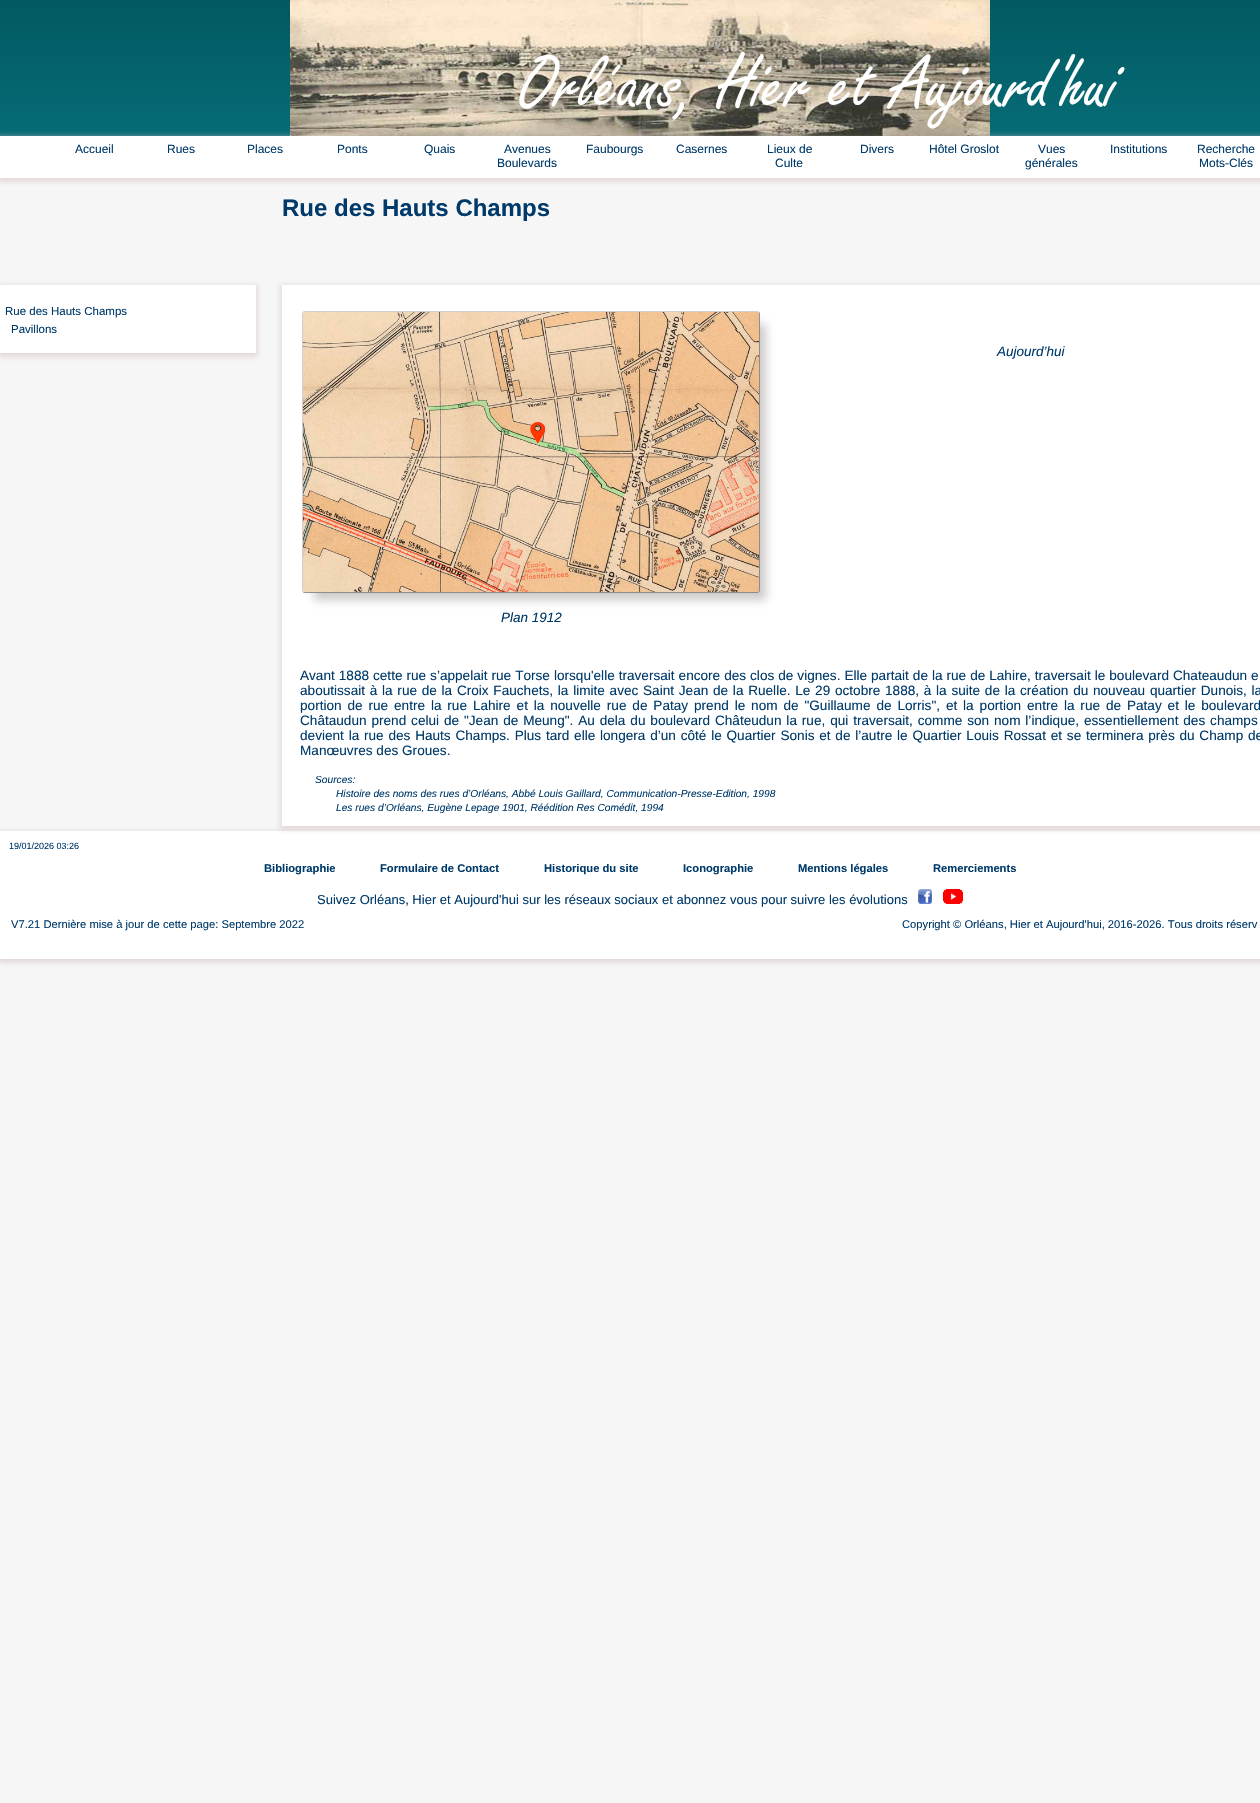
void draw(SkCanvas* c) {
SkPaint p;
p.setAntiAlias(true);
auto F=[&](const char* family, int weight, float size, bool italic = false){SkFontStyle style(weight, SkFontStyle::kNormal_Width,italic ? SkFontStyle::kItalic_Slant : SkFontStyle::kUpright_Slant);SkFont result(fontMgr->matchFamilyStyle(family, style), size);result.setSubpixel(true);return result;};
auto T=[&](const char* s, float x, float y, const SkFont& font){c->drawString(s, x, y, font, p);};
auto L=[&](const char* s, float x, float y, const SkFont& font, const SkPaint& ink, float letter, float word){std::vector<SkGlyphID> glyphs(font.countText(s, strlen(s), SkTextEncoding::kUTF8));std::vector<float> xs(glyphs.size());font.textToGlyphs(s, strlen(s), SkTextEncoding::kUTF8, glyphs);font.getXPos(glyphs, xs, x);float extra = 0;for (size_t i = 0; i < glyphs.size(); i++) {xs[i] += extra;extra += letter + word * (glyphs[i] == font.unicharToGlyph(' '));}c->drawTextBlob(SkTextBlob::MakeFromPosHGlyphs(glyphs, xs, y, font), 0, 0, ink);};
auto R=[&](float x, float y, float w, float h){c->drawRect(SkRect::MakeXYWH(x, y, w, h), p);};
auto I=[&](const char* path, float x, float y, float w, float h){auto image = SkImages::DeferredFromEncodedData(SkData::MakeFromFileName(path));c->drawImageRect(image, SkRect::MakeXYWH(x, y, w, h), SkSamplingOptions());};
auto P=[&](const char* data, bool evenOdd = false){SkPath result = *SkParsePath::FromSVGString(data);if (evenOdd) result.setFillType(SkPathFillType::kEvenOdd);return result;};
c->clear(0xfff6f6f6);
{
const SkColor colors[] = {0xff025961,0xff066c76};
const float stops[] = {0,1};
const SkPoint ends[] = {{640,0}, {640,136}};
p.setShader(SkGradientShader::MakeLinear(ends, colors, stops, 2, SkTileMode::kClamp));
p.setAlpha(255);
}
R(0,0,1260,136);
p.setShader(nullptr);
p.setColor(0x8ad4c2c2);
p.setMaskFilter(SkMaskFilter::MakeBlur(kNormal_SkBlurStyle, 2.5));
c->drawRect(SkRect::MakeXYWH(-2,136,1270,46),p);
p.setMaskFilter(nullptr);
I("1.png",290,0,700,136);
auto f1 = F("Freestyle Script",400,80);
p.setColor(0xffffffff);
T("Orléans, Hier et Aujourd'hui",520,108,f1);
R(0,136,1260,42);
auto f2 = F("Liberation Sans",400,12);
p.setColor(0xff003a6a);
T("Accueil",75,153,f2);
T("Rues",167,153,f2);
T("Places",247,153,f2);
T("Ponts",337,153,f2);
T("Quais",424,153,f2);
T("Avenues",504,153,f2);
T("Boulevards",497,167,f2);
T("Faubourgs",586,153,f2);
T("Casernes",676,153,f2);
T("Lieux de",767,153,f2);
T("Culte",775,167,f2);
T("Divers",860,153,f2);
T("Hôtel Groslot",929,153,f2);
T("Vues",1038,153,f2);
T("générales",1025,167,f2);
T("Institutions",1110,153,f2);
T("Recherche",1197,153,f2);
T("Mots-Clés",1199,167,f2);
auto f3 = F("Liberation Sans",700,24);
T("Rue des Hauts Champs",282,216,f3);
p.setColor(0x8ad4c2c2);
p.setMaskFilter(SkMaskFilter::MakeBlur(kNormal_SkBlurStyle, 2.5));
c->drawRect(SkRect::MakeXYWH(-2,285,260,72),p);
p.setMaskFilter(nullptr);
p.setColor(0xffffffff);
R(0,285,256,68);
auto f4 = F("Liberation Sans",400,11.5);
p.setColor(0xff003a6a);
T("Rue des Hauts Champs",5,315,f4);
T("Pavillons",11,333,f4);
p.setColor(0x8ad4c2c2);
p.setMaskFilter(SkMaskFilter::MakeBlur(kNormal_SkBlurStyle, 2.5));
c->drawRect(SkRect::MakeXYWH(-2,831,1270,132),p);
p.setMaskFilter(nullptr);
p.setColor(0xffffffff);
R(0,831,1260,128);
p.setColor(0x8ad4c2c2);
p.setMaskFilter(SkMaskFilter::MakeBlur(kNormal_SkBlurStyle, 2.5));
c->drawRect(SkRect::MakeXYWH(280,285,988,545),p);
p.setMaskFilter(nullptr);
p.setColor(0xffffffff);
R(282,285,978,541);
auto f5 = F("Liberation Sans",400,13.5,true);
p.setColor(0xff003a6a);
T("Aujourd’hui",997,356,f5);
p.setColor(0x576c6161);
p.setMaskFilter(SkMaskFilter::MakeBlur(kNormal_SkBlurStyle, 4.5));
c->drawRect(SkRect::MakeXYWH(314,324,452,276),p);
p.setMaskFilter(nullptr);
p.setStroke(true);
p.setStrokeWidth(1);
p.setColor(0xeb898787);
c->drawPath(P("M759 312l.5 2v276l-.5 2l-2 .5h-452l-2-.5"),p);
p.setColor(0xffd2cece);
c->drawPath(P("M303 592l-.5-2v-276l.5-2l2-.5h452l2 .5"),p);
I("2.png",303,312,456,280);
p.setStroke(false);
p.setColor(0xff003a6a);
T("Plan 1912",501,622,f5);
auto f6 = F("Liberation Sans",400,13.6);
L("Avant 1888 cette rue s’appelait rue Torse lorsqu'elle traversait encore des clos de vignes. Elle partait de la rue de Lahire, traversait le boulevard Chateaudun e",300,680,f6,p,0,.2);
L("aboutissait à la rue de la Croix Fauchets, la limite avec Saint Jean de la Ruelle. Le 29 octobre 1888, à la suite de la création du nouveau quartier Dunois, la",300,695,f6,p,0,.95);
L("portion de rue entre la rue Lahire et la nouvelle rue de Patay prend le nom de \"Guillaume de Lorris\", et la portion entre la rue de Patay et le boulevard",300,710,f6,p,0,2.1);
L("Châtaudun prend celui de \"Jean de Meung\". Au dela du boulevard Châteudun la rue, qui traversait, comme son nom l’indique, essentiellement des champs",300,725,f6,p,0,1.1);
L("devient la rue des Hauts Champs. Plus tard elle longera d’un côté le Quartier Sonis et de l’autre le Quartier Louis Rossat et se terminera près du Champ de",300,740,f6,p,0,1);
T("Manœuvres des Groues.",300,755,f6);
auto f7 = F("Liberation Sans",400,10.2,true);
T("Sources:",315,783,f7);
T("Histoire des noms des rues d’Orléans, Abbé Louis Gaillard, Communication-Presse-Edition, 1998",336,797,f7);
T("Les rues d’Orléans, Eugène Lepage 1901, Réédition Res Comédit, 1994",336,811,f7);
auto f8 = F("Liberation Sans",400,9);
T("19/01/2026 03:26",9,849,f8);
auto f9 = F("Liberation Sans",700,11.2);
T("Bibliographie",264,872,f9);
T("Formulaire de Contact",380,872,f9);
T("Historique du site",544,872,f9);
T("Iconographie",683,872,f9);
T("Mentions légales",798,872,f9);
T("Remerciements",933,872,f9);
auto f10 = F("Liberation Sans",400,13);
T("Suivez Orléans, Hier et Aujourd'hui sur les réseaux sociaux et abonnez vous pour suivre les évolutions",317,904,f10);
I("3.png",918,889,14,15);
I("4.png",943,889,20,15);
auto f11 = F("Liberation Sans",400,11.2);
T("V7.21 Dernière mise à jour de cette page: Septembre 2022",11,928,f11);
T("Copyright © Orléans, Hier et Aujourd'hui, 2016-2026. Tous droits réserv",902,928,f11);
}
